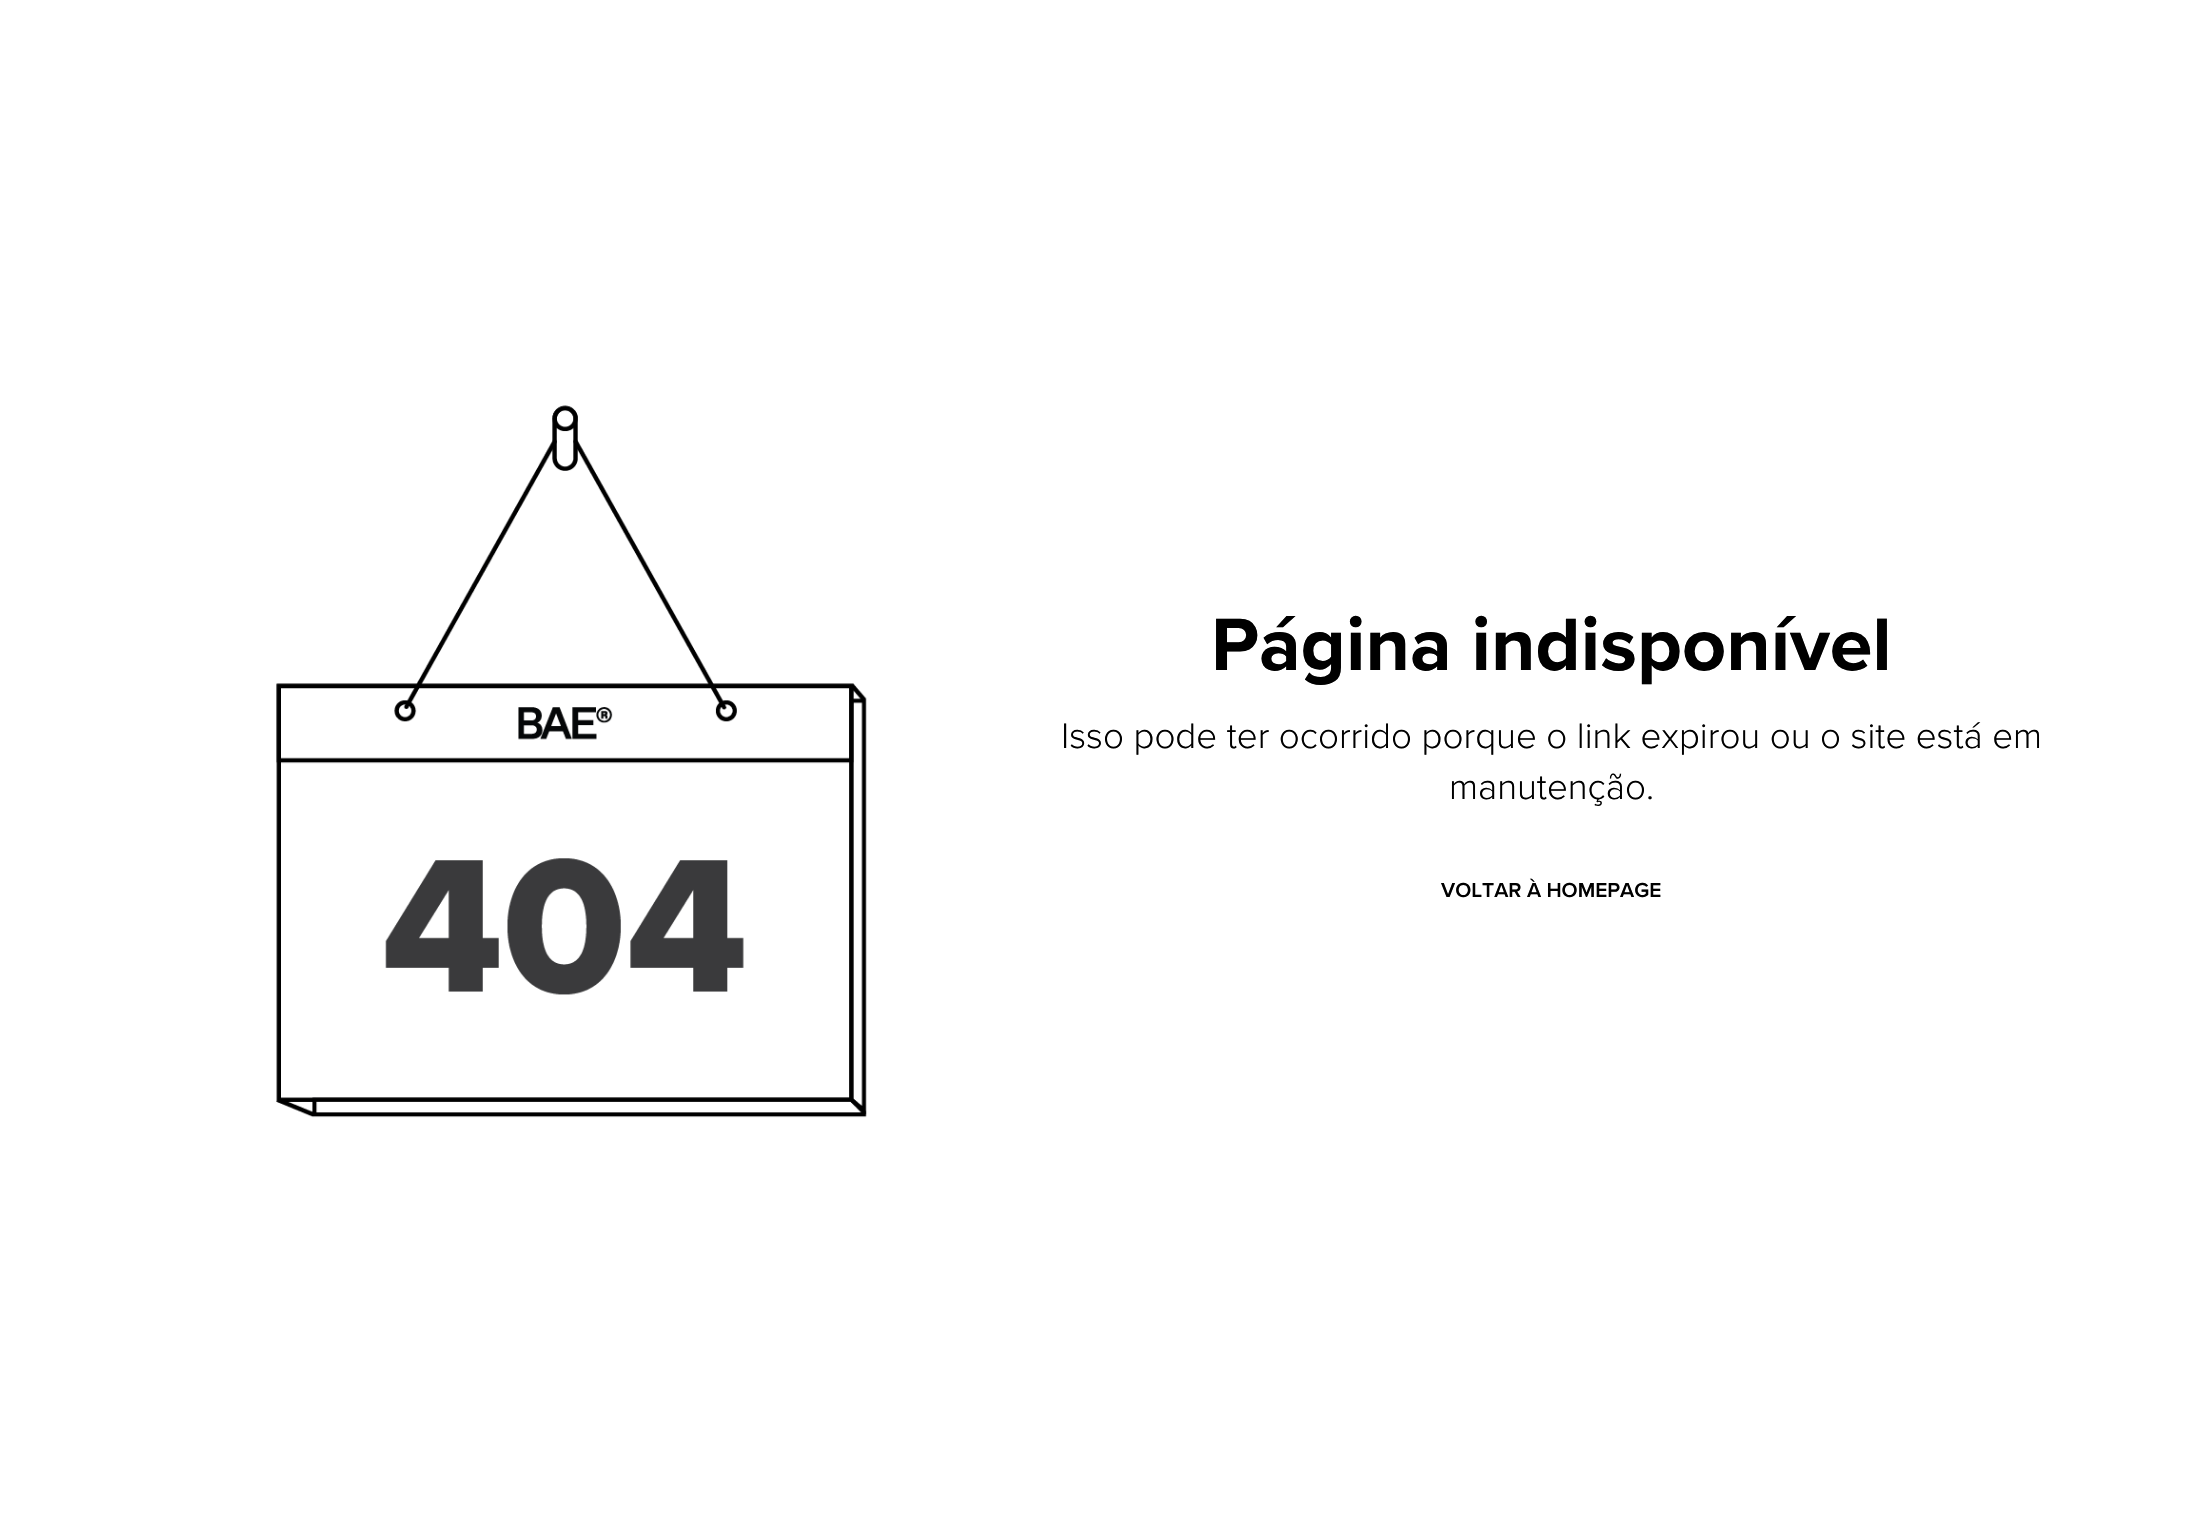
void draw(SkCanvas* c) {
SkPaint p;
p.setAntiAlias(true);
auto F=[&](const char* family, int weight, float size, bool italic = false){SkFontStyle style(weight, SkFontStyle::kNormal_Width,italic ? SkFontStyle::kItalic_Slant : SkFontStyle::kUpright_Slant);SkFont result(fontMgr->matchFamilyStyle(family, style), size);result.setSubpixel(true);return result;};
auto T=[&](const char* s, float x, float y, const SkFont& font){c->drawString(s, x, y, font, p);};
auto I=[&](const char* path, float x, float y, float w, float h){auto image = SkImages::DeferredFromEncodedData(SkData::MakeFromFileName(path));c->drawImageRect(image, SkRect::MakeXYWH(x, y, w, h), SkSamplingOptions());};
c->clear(0xffffffff);
I("1.png",276,405,591,713);
auto f1 = F("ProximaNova",700,77);
p.setColor(0xff000000);
T("Página indisponível",1211,670,f1);
auto f2 = F("Proxima Nova",300,36.75);
T("Isso pode ter ocorrido porque o link expirou ou o site está em",1061,748,f2);
T("manutenção.",1449,799,f2);
auto f3 = F("Proxima Nova",600,21);
T("VOLTAR À HOMEPAGE",1441,897,f3);
}
